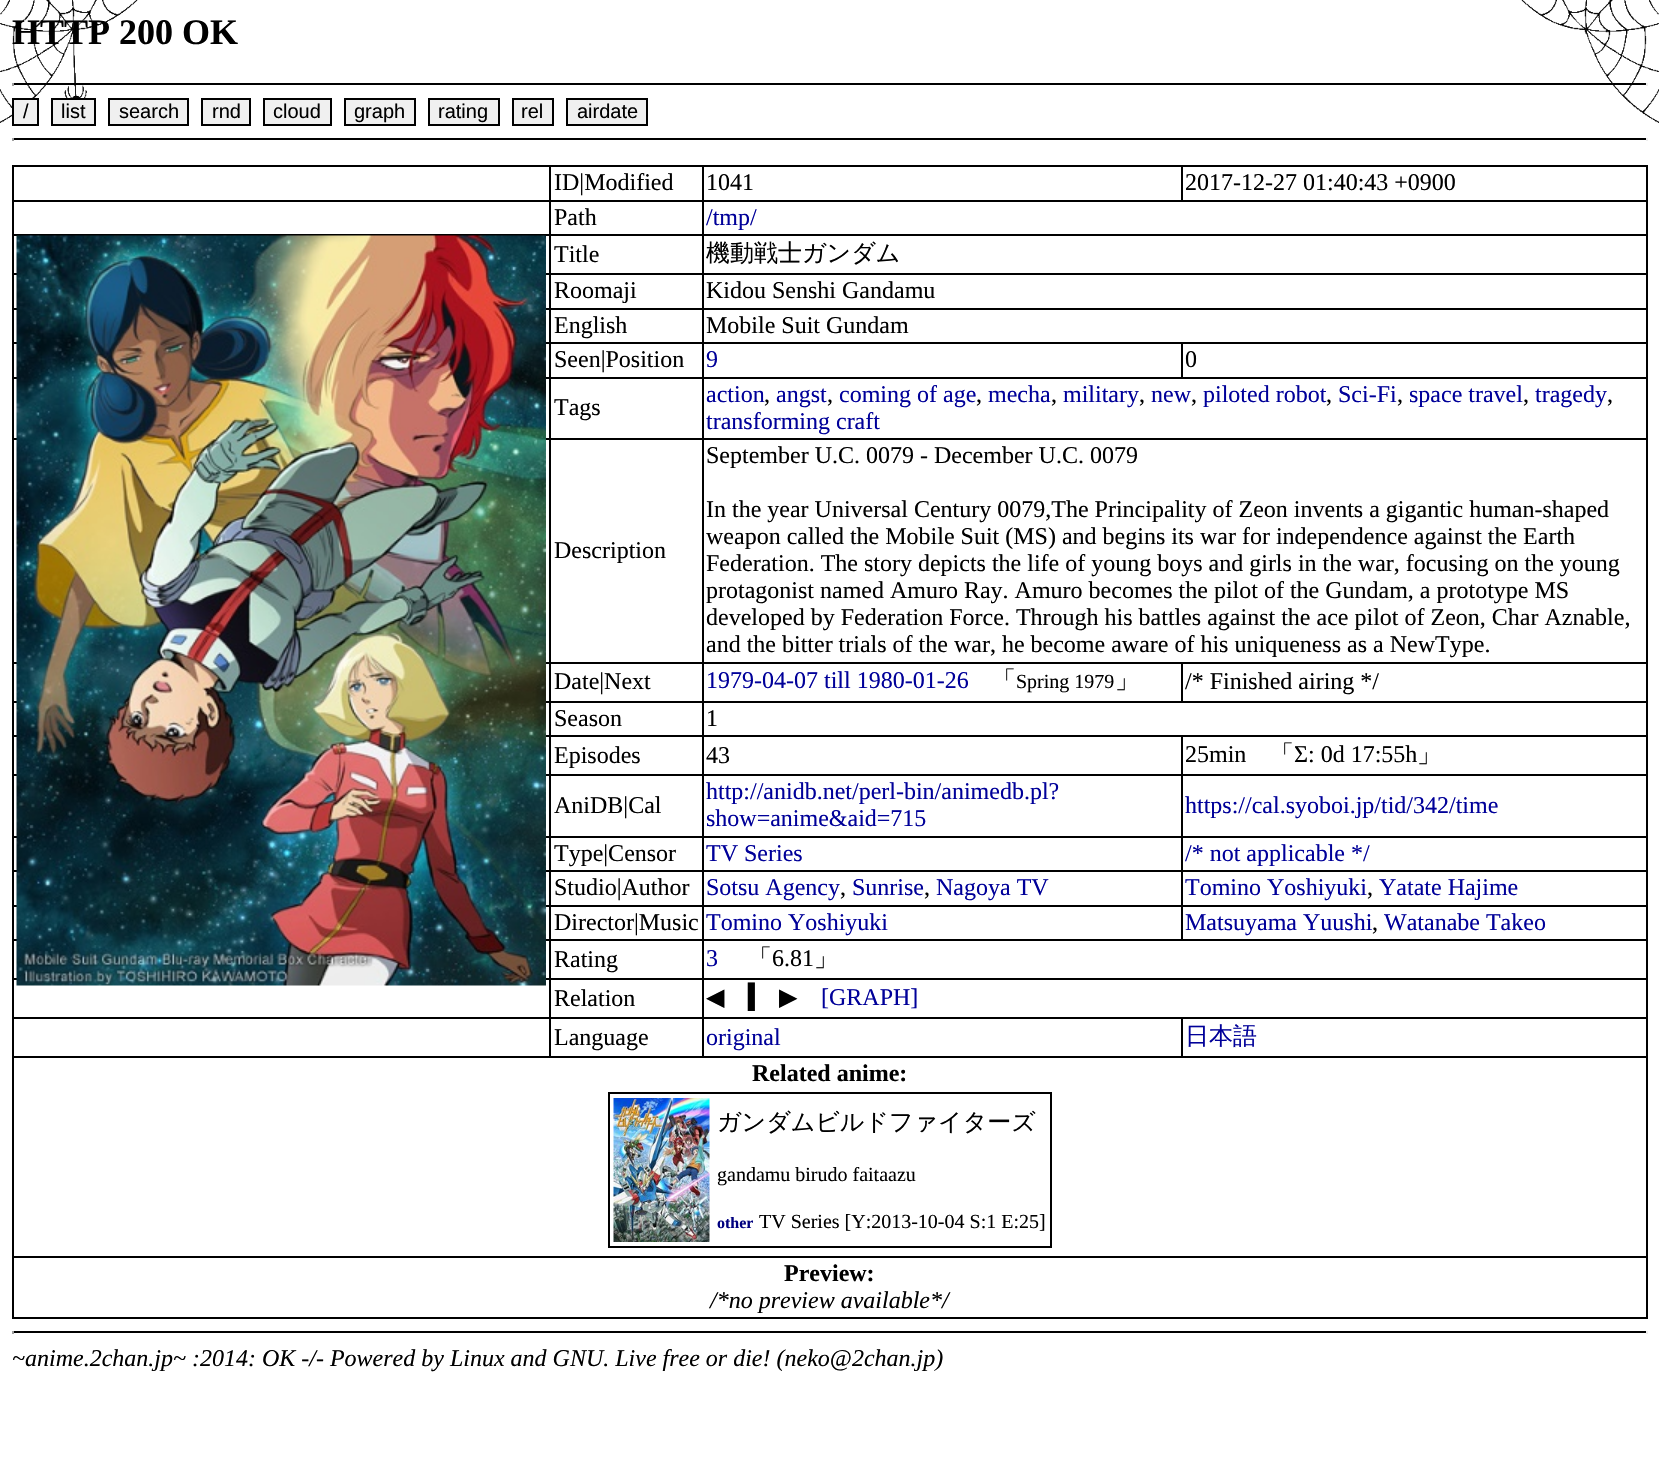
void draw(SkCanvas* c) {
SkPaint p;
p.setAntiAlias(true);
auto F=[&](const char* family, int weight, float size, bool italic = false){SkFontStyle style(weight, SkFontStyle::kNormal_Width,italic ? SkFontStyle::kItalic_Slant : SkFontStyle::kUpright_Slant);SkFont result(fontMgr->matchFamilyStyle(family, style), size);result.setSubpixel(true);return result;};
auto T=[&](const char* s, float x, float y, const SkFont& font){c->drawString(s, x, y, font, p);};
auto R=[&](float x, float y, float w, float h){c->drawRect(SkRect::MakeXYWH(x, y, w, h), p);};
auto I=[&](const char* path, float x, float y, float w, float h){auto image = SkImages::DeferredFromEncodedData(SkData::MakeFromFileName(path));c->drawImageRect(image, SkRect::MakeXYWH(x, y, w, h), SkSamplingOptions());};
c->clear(0xffffffff);
I("1.png",0,0,138,123);
I("2.png",1521,0,138,123);
auto f1 = F("Liberation Serif",700,36);
p.setColor(0xff000000);
T("HTTP 200 OK",12,44,f1);
R(12,83,1635,2);
p.setColor(0xffeeeeee);
R(1646,83,2,3);
p.setColor(0xff9f9f9f);
R(12,83,2,3);
p.setColor(0xfff0f0f0);
c->drawRect(SkRect::MakeXYWH(13,99,25,26),p);
p.setStroke(true);
p.setStrokeWidth(2);
p.setColor(0xff000000);
c->drawRect(SkRect::MakeXYWH(13,99,25,26),p);
auto f2 = F("Liberation Sans",400,20);
p.setStroke(false);
T("/",23,118,f2);
p.setColor(0xfff0f0f0);
c->drawRect(SkRect::MakeXYWH(52,99,43,26),p);
p.setStroke(true);
p.setColor(0xff000000);
c->drawRect(SkRect::MakeXYWH(52,99,43,26),p);
p.setStroke(false);
T("list",61,118,f2);
p.setColor(0xfff0f0f0);
c->drawRect(SkRect::MakeXYWH(109,99,79,26),p);
p.setStroke(true);
p.setColor(0xff000000);
c->drawRect(SkRect::MakeXYWH(109,99,79,26),p);
p.setStroke(false);
T("search",119,118,f2);
p.setColor(0xfff0f0f0);
c->drawRect(SkRect::MakeXYWH(202,99,48,26),p);
p.setStroke(true);
p.setColor(0xff000000);
c->drawRect(SkRect::MakeXYWH(202,99,48,26),p);
p.setStroke(false);
T("rnd",212,118,f2);
p.setColor(0xfff0f0f0);
c->drawRect(SkRect::MakeXYWH(264,99,67,26),p);
p.setStroke(true);
p.setColor(0xff000000);
c->drawRect(SkRect::MakeXYWH(264,99,67,26),p);
p.setStroke(false);
T("cloud",273,118,f2);
p.setColor(0xfff0f0f0);
c->drawRect(SkRect::MakeXYWH(345,99,70,26),p);
p.setStroke(true);
p.setColor(0xff000000);
c->drawRect(SkRect::MakeXYWH(345,99,70,26),p);
p.setStroke(false);
T("graph",354,118,f2);
p.setColor(0xfff0f0f0);
c->drawRect(SkRect::MakeXYWH(429,99,70,26),p);
p.setStroke(true);
p.setColor(0xff000000);
c->drawRect(SkRect::MakeXYWH(429,99,70,26),p);
p.setStroke(false);
T("rating",438,118,f2);
p.setColor(0xfff0f0f0);
c->drawRect(SkRect::MakeXYWH(513,99,40,26),p);
p.setStroke(true);
p.setColor(0xff000000);
c->drawRect(SkRect::MakeXYWH(513,99,40,26),p);
p.setStroke(false);
T("rel",521,118,f2);
p.setColor(0xfff0f0f0);
c->drawRect(SkRect::MakeXYWH(567,99,80,26),p);
p.setStroke(true);
p.setColor(0xff000000);
c->drawRect(SkRect::MakeXYWH(567,99,80,26),p);
p.setStroke(false);
T("airdate",577,118,f2);
R(12,138,1635,2);
p.setColor(0xffeeeeee);
R(1646,138,2,3);
p.setColor(0xff9f9f9f);
R(12,138,2,3);
p.setColor(0xff000000);
R(12,165,1635,2);
R(1646,165,2,1154);
R(12,1317,1635,2);
R(12,165,2,1154);
auto f3 = F("Liberation Serif",400,24);
T("ID|Modified",554,190,f3);
T("1041",706,190,f3);
R(12,200,1635,2);
R(1181,165,2,36);
T("2017-12-27 01:40:43 +0900",1185,190,f3);
R(12,234,1635,2);
R(12,273,1635,2);
R(12,308,1635,2);
R(12,342,1635,2);
R(12,377,1635,2);
R(12,438,1635,2);
R(12,662,1635,2);
R(12,701,1635,2);
R(12,735,1635,2);
R(12,774,1635,2);
R(12,836,1635,2);
R(12,870,1635,2);
R(12,905,1635,2);
R(12,939,1635,2);
R(12,978,1635,2);
I("3.png",16,235,530,751);
T("Path",554,225,f3);
p.setColor(0xff000099);
T("/tmp/",706,225,f3);
p.setColor(0xff000000);
T("Title",554,262,f3);
auto f4 = F("WenQuanYi Zen Hei",500,24);
T("機動戦士ガンダム",706,261,f4);
T("Roomaji",554,298,f3);
T("Kidou Senshi Gandamu",706,298,f3);
T("English",554,333,f3);
T("Mobile Suit Gundam",706,333,f3);
T("Seen|Position",554,367,f3);
p.setColor(0xff000099);
T("9",706,367,f3);
p.setColor(0xff000000);
R(1181,342,2,36);
T("0",1185,367,f3);
T("Tags",554,415,f3);
p.setColor(0xff000099);
T("action",706,402,f3);
p.setColor(0xff000000);
T(",",764,402,f3);
p.setColor(0xff000099);
T("angst",776,402,f3);
p.setColor(0xff000000);
T(",",827,402,f3);
p.setColor(0xff000099);
T("coming of age",839,402,f3);
p.setColor(0xff000000);
T(",",976,402,f3);
p.setColor(0xff000099);
T("mecha",988,402,f3);
p.setColor(0xff000000);
T(",",1051,402,f3);
p.setColor(0xff000099);
T("military",1063,402,f3);
p.setColor(0xff000000);
T(",",1139,402,f3);
p.setColor(0xff000099);
T("new",1151,402,f3);
p.setColor(0xff000000);
T(",",1191,402,f3);
p.setColor(0xff000099);
T("piloted robot",1203,402,f3);
p.setColor(0xff000000);
T(",",1326,402,f3);
p.setColor(0xff000099);
T("Sci-Fi",1338,402,f3);
p.setColor(0xff000000);
T(",",1397,402,f3);
p.setColor(0xff000099);
T("space travel",1409,402,f3);
p.setColor(0xff000000);
T(",",1523,402,f3);
p.setColor(0xff000099);
T("tragedy",1535,402,f3);
p.setColor(0xff000000);
T(",",1607,402,f3);
p.setColor(0xff000099);
T("transforming craft",706,429,f3);
p.setColor(0xff000000);
T("Description",554,558,f3);
T("September U.C. 0079 - December U.C. 0079",706,463,f3);
T("In the year Universal Century 0079,The Principality of Zeon invents a gigantic human-shaped",706,517,f3);
T("weapon called the Mobile Suit (MS) and begins its war for independence against the Earth",706,544,f3);
T("Federation. The story depicts the life of young boys and girls in the war, focusing on the young",706,571,f3);
T("protagonist named Amuro Ray. Amuro becomes the pilot of the Gundam, a prototype MS",706,598,f3);
T("developed by Federation Force. Through his battles against the ace pilot of Zeon, Char Aznable,",706,625,f3);
T("and the bitter trials of the war, he become aware of his uniqueness as a NewType.",706,652,f3);
T("Date|Next",554,689,f3);
p.setColor(0xff000099);
T("1979-04-07 till 1980-01-26",706,688,f3);
p.setColor(0xff000000);
T("「",992,688,f4);
auto f5 = F("Liberation Serif",400,20);
T("Spring 1979",1016,688,f5);
T("」",1115,688,f4);
R(1181,662,2,40);
T("/* Finished airing */",1185,689,f3);
T("Season",554,726,f3);
T("1",706,726,f3);
T("Episodes",554,763,f3);
T("43",706,763,f3);
T("25min",1185,762,f3);
T("「",1270,762,f4);
T("Σ: 0d 17:55h",1294,762,f3);
T("」",1417,762,f4);
T("AniDB|Cal",554,813,f3);
p.setColor(0xff000099);
T("http://anidb.net/perl-bin/animedb.pl?",706,799,f3);
T("show=anime&aid=715",706,826,f3);
T("https://cal.syoboi.jp/tid/342/time",1185,813,f3);
p.setColor(0xff000000);
T("Type|Censor",554,861,f3);
p.setColor(0xff000099);
T("TV Series",706,861,f3);
T("/* not applicable */",1185,861,f3);
p.setColor(0xff000000);
T("Studio|Author",554,895,f3);
p.setColor(0xff000099);
T("Sotsu Agency",706,895,f3);
p.setColor(0xff000000);
T(",",840,895,f3);
p.setColor(0xff000099);
T("Sunrise",852,895,f3);
p.setColor(0xff000000);
T(",",924,895,f3);
p.setColor(0xff000099);
T("Nagoya TV",936,895,f3);
T("Tomino Yoshiyuki",1185,895,f3);
p.setColor(0xff000000);
T(",",1367,895,f3);
p.setColor(0xff000099);
T("Yatate Hajime",1379,895,f3);
p.setColor(0xff000000);
T("Director|Music",554,930,f3);
p.setColor(0xff000099);
T("Tomino Yoshiyuki",706,930,f3);
p.setColor(0xff000000);
R(1181,735,2,206);
p.setColor(0xff000099);
T("Matsuyama Yuushi",1185,930,f3);
p.setColor(0xff000000);
T(",",1372,930,f3);
p.setColor(0xff000099);
T("Watanabe Takeo",1384,930,f3);
p.setColor(0xff000000);
T("Rating",554,967,f3);
p.setColor(0xff000099);
T("3",706,966,f3);
p.setColor(0xff000000);
T("「",748,966,f4);
T("6.81",772,966,f3);
T("」",814,966,f4);
T("Relation",554,1006,f3);
auto f6 = F("DejaVu Sans",400,24);
T("◀",706,1005,f6);
T("▍",748,1005,f6);
T("▶",779,1005,f6);
p.setColor(0xff000099);
T("[GRAPH]",821,1005,f3);
p.setColor(0xff000000);
R(12,1017,1635,2);
R(12,1056,1635,2);
R(549,165,2,893);
T("Language",554,1045,f3);
R(702,165,2,893);
p.setColor(0xff000099);
T("original",706,1045,f3);
p.setColor(0xff000000);
R(1181,1017,2,41);
p.setColor(0xff000099);
T("日本語",1185,1044,f4);
auto f7 = F("Liberation Serif",700,24);
p.setColor(0xff000000);
T("Related anime:",752,1081,f7);
p.setStroke(true);
c->drawRect(SkRect::MakeXYWH(609,1093,442,154),p);
I("4.png",613,1098,97,144);
p.setStroke(false);
T("ガンダムビルドファイターズ",717,1130,f4);
T("gandamu birudo faitaazu",717,1181,f5);
auto f8 = F("Liberation Serif",700,16);
p.setColor(0xff00007f);
T("other",717,1228,f8);
p.setColor(0xff000000);
T("TV Series [Y:2013-10-04 S:1 E:25]",759,1228,f5);
R(12,1256,1635,2);
T("Preview:",784,1281,f7);
auto f9 = F("Liberation Serif",400,24,true);
T("/*no preview available*/",710,1308,f9);
R(12,1331,1635,2);
p.setColor(0xffeeeeee);
R(1646,1331,2,3);
p.setColor(0xff9f9f9f);
R(12,1331,2,3);
p.setColor(0xff000000);
T("~anime.2chan.jp~ :2014: OK -/- Powered by Linux and GNU. Live free or die! (neko@2chan.jp)",12,1366,f9);
}
